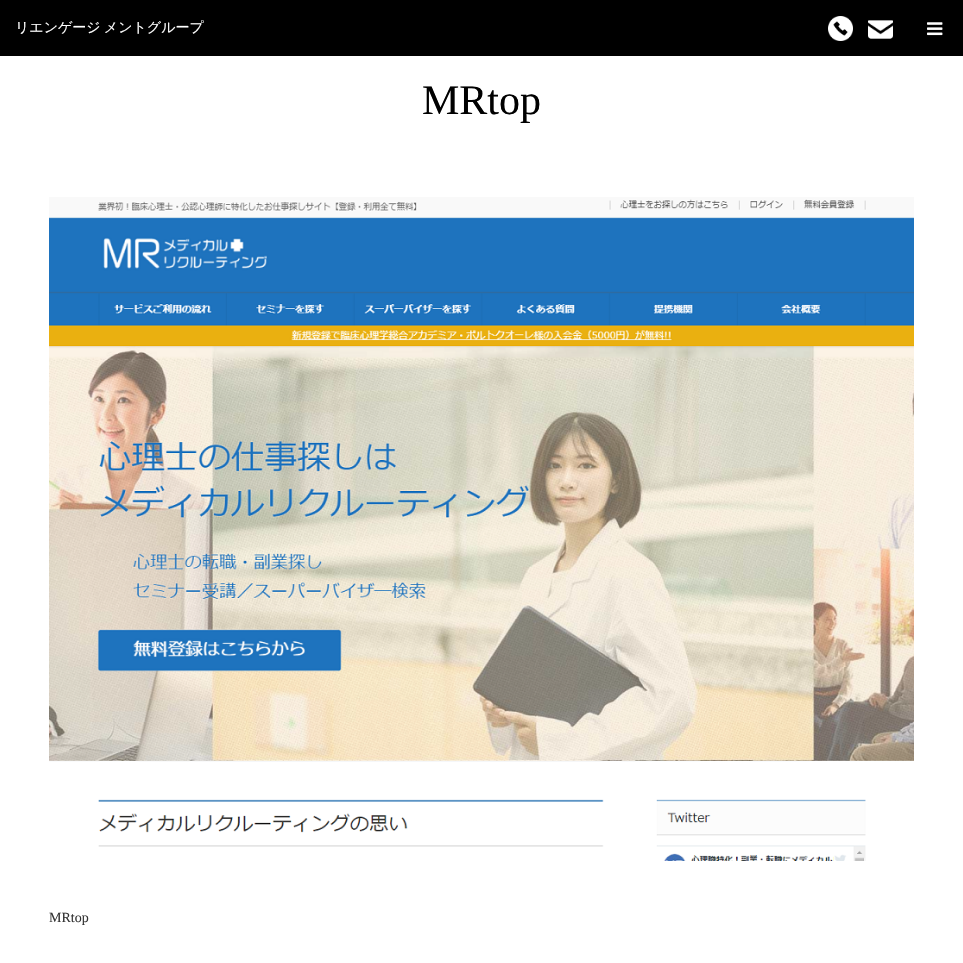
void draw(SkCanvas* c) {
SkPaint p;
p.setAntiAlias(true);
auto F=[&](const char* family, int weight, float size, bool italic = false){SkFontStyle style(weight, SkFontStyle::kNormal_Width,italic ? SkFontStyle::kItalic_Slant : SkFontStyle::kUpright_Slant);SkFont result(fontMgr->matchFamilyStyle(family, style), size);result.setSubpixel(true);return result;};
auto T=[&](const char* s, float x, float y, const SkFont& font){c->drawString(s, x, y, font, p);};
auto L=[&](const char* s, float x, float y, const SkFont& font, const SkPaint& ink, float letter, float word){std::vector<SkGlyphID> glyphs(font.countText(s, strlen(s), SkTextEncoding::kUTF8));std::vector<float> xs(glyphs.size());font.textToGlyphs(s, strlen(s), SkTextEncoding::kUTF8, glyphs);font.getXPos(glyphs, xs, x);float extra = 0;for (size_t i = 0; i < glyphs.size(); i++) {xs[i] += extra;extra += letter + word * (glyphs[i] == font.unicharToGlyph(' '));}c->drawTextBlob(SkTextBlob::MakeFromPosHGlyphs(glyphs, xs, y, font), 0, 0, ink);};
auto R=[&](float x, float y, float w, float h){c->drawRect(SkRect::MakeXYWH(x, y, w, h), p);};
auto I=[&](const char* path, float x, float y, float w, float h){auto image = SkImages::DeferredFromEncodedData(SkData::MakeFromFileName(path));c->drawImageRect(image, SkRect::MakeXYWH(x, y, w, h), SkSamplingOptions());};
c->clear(0xffffffff);
p.setColor(0xff000000);
R(0,0,963,56);
auto f1 = F("WenQuanYi Zen Hei",500,14);
p.setColor(0xffffffff);
L("リエンゲージ メントグループ",15,32,f1,p,0,-1);
I("1.png",828,16,25,25);
I("2.png",868,20,25,19);
I("3.png",927,22,16,14);
auto f2 = F("Liberation Serif",400,42);
p.setColor(0xff000000);
T("MRtop",422,114,f2);
I("4.png",49,197,865,664);
auto f3 = F("Liberation Serif",400,14);
p.setColor(0xff333333);
T("MRtop",49,922,f3);
}
